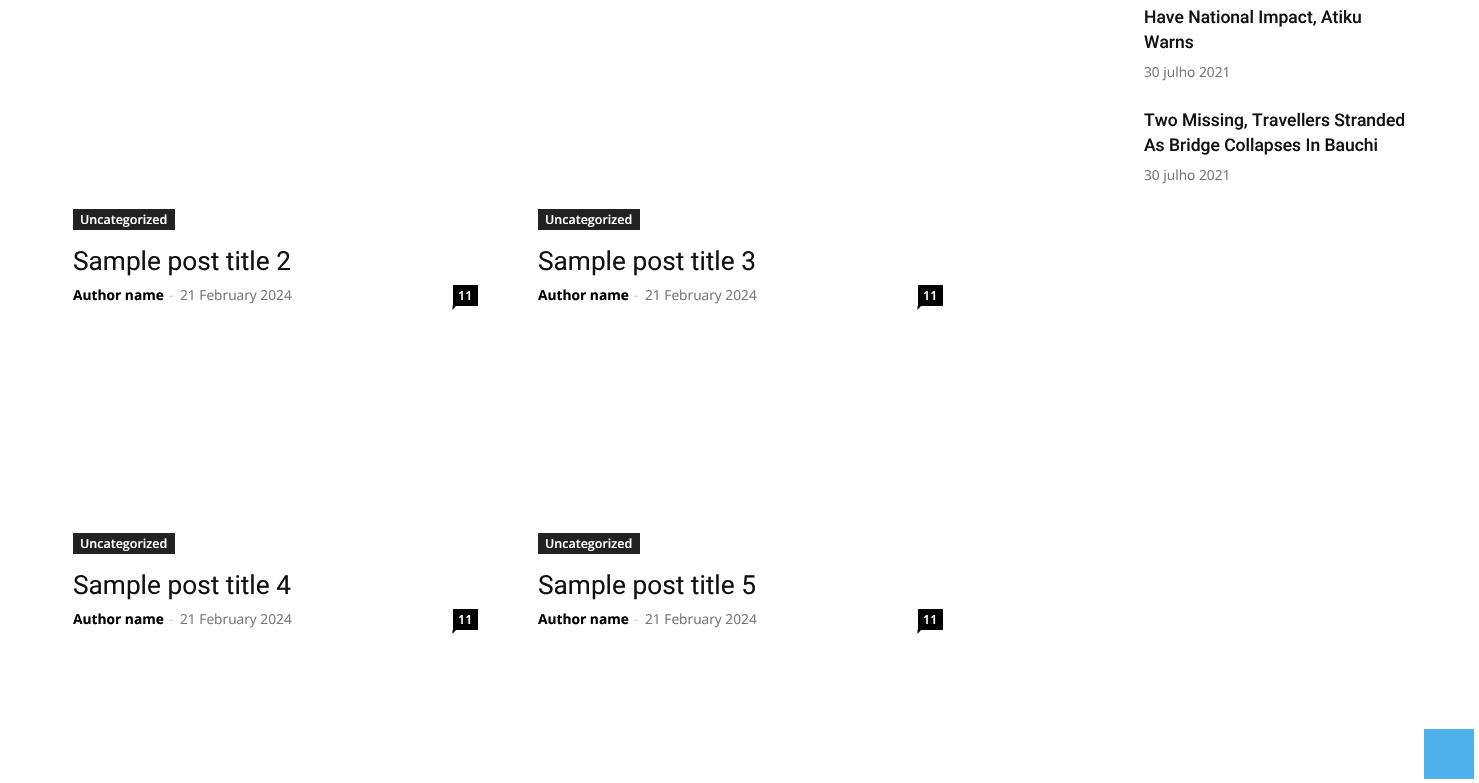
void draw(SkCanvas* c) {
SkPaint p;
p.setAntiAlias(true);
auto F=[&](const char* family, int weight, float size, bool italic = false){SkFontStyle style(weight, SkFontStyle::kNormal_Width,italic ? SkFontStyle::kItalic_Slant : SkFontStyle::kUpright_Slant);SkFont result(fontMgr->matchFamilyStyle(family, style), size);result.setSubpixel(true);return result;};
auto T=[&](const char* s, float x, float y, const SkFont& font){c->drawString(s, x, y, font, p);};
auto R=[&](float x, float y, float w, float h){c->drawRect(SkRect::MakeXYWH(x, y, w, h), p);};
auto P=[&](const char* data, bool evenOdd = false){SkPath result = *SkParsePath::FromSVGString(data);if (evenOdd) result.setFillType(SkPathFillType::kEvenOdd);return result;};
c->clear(0xffffffff);
auto f1 = F("Roboto",500,17.5);
p.setColor(0xff111111);
T("Have National Impact, Atiku",1144,23,f1);
T("Warns",1144,48,f1);
auto f2 = F("Open Sans",400,13.75);
p.setColor(0xff767676);
T("30 julho 2021",1144,77,f2);
p.setColor(0xff111111);
T("Two Missing, Travellers Stranded",1144,126,f1);
T("As Bridge Collapses In Bauchi",1144,151,f1);
p.setColor(0xff767676);
T("30 julho 2021",1144,180,f2);
p.setColor(0xff222222);
R(73,209,102,21);
auto f3 = F("Open Sans",600,12.5);
p.setColor(0xffffffff);
T("Uncategorized",80,224,f3);
auto f4 = F("Roboto",400,26.25);
p.setColor(0xff111111);
T("Sample post title 2",73,270,f4);
auto f5 = F("Open Sans",700,13.75);
p.setColor(0xff000000);
T("Author name",73,300,f5);
p.setColor(0xffcccccc);
T("-",169,300,f2);
p.setColor(0xff767676);
T("21 February 2024",180,300,f2);
p.setColor(0xff000000);
R(453,285,25,21);
p.setColor(0xffffffff);
T("11",458,300,f3);
p.setColor(0xff000000);
c->drawPath(P("M452.5 306h3.5l-3.5 4z"),p);
p.setColor(0xff222222);
R(538,209,102,21);
p.setColor(0xffffffff);
T("Uncategorized",545,224,f3);
p.setColor(0xff111111);
T("Sample post title 3",538,270,f4);
p.setColor(0xff000000);
T("Author name",538,300,f5);
p.setColor(0xffcccccc);
T("-",634,300,f2);
p.setColor(0xff767676);
T("21 February 2024",645,300,f2);
p.setColor(0xff000000);
R(918,285,25,21);
p.setColor(0xffffffff);
T("11",923,300,f3);
p.setColor(0xff000000);
c->drawPath(P("M917.5 306h3.5l-3.5 4z"),p);
p.setColor(0xff222222);
R(73,533,102,21);
p.setColor(0xffffffff);
T("Uncategorized",80,548,f3);
p.setColor(0xff111111);
T("Sample post title 4",73,594,f4);
p.setColor(0xff000000);
T("Author name",73,624,f5);
p.setColor(0xffcccccc);
T("-",169,624,f2);
p.setColor(0xff767676);
T("21 February 2024",180,624,f2);
p.setColor(0xff000000);
R(453,609,25,21);
p.setColor(0xffffffff);
T("11",458,624,f3);
p.setColor(0xff000000);
c->drawPath(P("M452.5 630h3.5l-3.5 4z"),p);
p.setColor(0xff222222);
R(538,533,102,21);
p.setColor(0xffffffff);
T("Uncategorized",545,548,f3);
p.setColor(0xff111111);
T("Sample post title 5",538,594,f4);
p.setColor(0xff000000);
T("Author name",538,624,f5);
p.setColor(0xffcccccc);
T("-",634,624,f2);
p.setColor(0xff767676);
T("21 February 2024",645,624,f2);
p.setColor(0xff000000);
R(918,609,25,21);
p.setColor(0xffffffff);
T("11",923,624,f3);
p.setColor(0xff000000);
c->drawPath(P("M917.5 630h3.5l-3.5 4z"),p);
p.setColor(0xff4db2ec);
R(1424,729,50,50);
}
